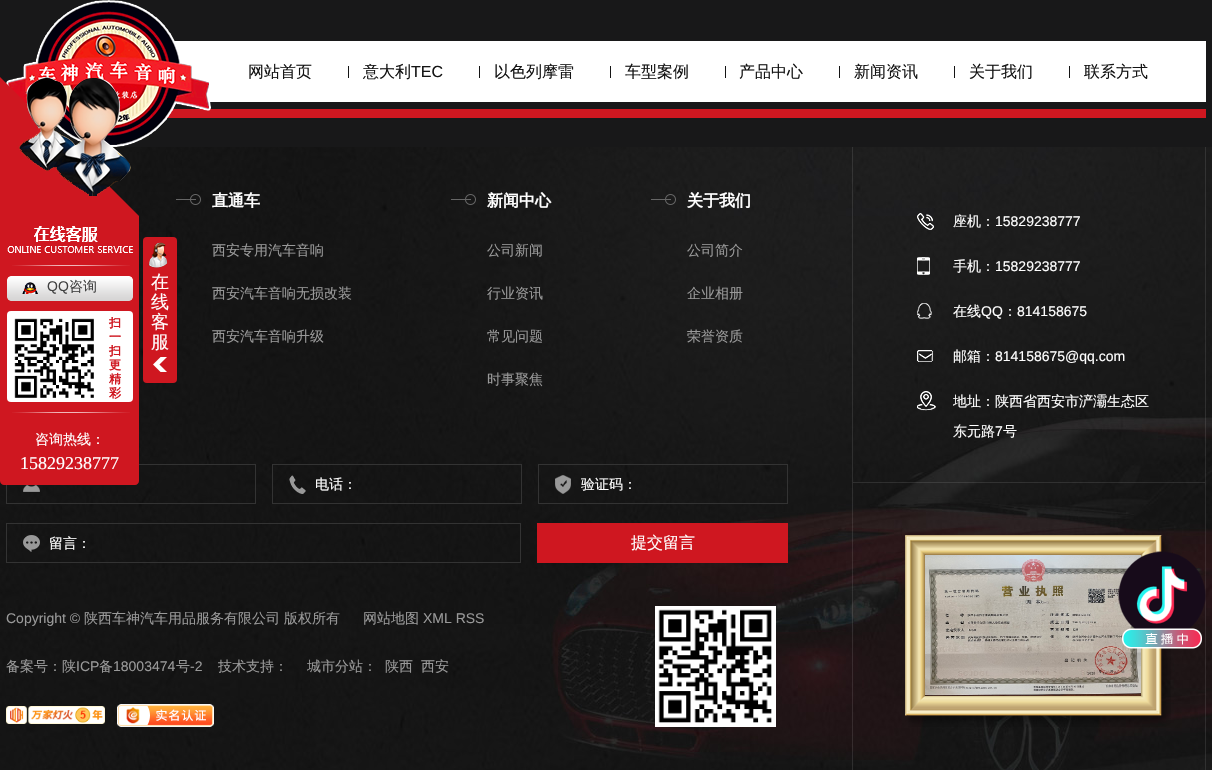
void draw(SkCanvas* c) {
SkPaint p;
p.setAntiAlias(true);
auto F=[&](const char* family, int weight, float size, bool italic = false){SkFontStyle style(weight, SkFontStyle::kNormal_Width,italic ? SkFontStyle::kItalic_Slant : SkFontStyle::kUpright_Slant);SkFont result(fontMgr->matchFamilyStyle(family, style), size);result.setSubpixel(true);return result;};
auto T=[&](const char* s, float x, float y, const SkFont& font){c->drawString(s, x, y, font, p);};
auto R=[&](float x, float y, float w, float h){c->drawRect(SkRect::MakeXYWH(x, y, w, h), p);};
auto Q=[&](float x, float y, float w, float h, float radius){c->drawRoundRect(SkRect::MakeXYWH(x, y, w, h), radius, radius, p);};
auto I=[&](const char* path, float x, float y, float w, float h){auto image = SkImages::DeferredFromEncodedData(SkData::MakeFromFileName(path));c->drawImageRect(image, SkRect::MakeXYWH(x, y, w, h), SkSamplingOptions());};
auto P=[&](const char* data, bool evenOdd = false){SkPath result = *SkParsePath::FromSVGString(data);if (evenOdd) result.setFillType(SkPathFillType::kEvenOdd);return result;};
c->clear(0xffffffff);
p.setColor(0xff181819);
R(0,0,1212,147);
p.setColor(0xffffffff);
R(174,41,1032,61);
p.setColor(0xffcf1720);
R(167,109,1039,9);
I("1.png",6,0,205,147);
auto f1 = F("WenQuanYi Zen Hei",500,16);
p.setColor(0xff141414);
T("网站首页",248,77,f1);
R(348,66,1,12);
T("意大利",363,77,f1);
auto f2 = F("Liberation Sans",400,16);
T("TEC",411,77,f2);
R(479,66,1,12);
T("以色列摩雷",494,77,f1);
R(610,66,1,12);
T("车型案例",625,77,f1);
R(725,66,1,12);
T("产品中心",739,77,f1);
R(839,66,1,12);
T("新闻资讯",854,77,f1);
R(954,66,1,12);
T("关于我们",969,77,f1);
R(1069,66,1,12);
T("联系方式",1084,77,f1);
I("2.png",0,147,1212,623);
I("3.png",176,194,25,11);
auto f3 = F("WenQuanYi Zen Hei",700,16);
p.setColor(0xffffffff);
T("直通车",212,206,f3);
auto f4 = F("WenQuanYi Zen Hei",500,14);
p.setColor(0xff999999);
T("西安专用汽车音响",212,255,f4);
T("西安汽车音响无损改装",212,298,f4);
T("西安汽车音响升级",212,341,f4);
I("4.png",451,194,25,11);
p.setColor(0xffffffff);
T("新闻中心",487,206,f3);
p.setColor(0xff999999);
T("公司新闻",487,255,f4);
T("行业资讯",487,298,f4);
T("常见问题",487,341,f4);
T("时事聚焦",487,384,f4);
I("5.png",651,194,25,11);
p.setColor(0xffffffff);
T("关于我们",687,206,f3);
p.setColor(0xff999999);
T("公司简介",687,255,f4);
T("企业相册",687,298,f4);
T("荣誉资质",687,341,f4);
I("6.png",23,485,17,7);
p.setStroke(true);
p.setStrokeWidth(1);
p.setColor(0xff333333);
c->drawRect(SkRect::MakeXYWH(6.5,464.5,249,39),p);
I("7.png",289,475,17,19);
c->drawRect(SkRect::MakeXYWH(272.5,464.5,249,39),p);
p.setStroke(false);
p.setColor(0xffffffff);
T("电话：",315,489,f4);
I("8.png",555,475,16,19);
p.setStroke(true);
p.setColor(0xff333333);
c->drawRect(SkRect::MakeXYWH(538.5,464.5,249,39),p);
p.setStroke(false);
p.setColor(0xffffffff);
T("验证码：",581,489,f4);
I("9.png",23,535,17,17);
p.setStroke(true);
p.setColor(0xff333333);
c->drawRect(SkRect::MakeXYWH(6.5,523.5,514,39),p);
p.setStroke(false);
p.setColor(0xffffffff);
T("留言：",49,548,f4);
p.setColor(0xffcf1720);
R(537,523,251,40);
p.setColor(0xffffffff);
T("提交留言",631,548,f1);
auto f5 = F("Liberation Sans",400,14);
p.setColor(0xff999999);
T("Copyright ©",6,623,f5);
T("陕西车神汽车用品服务有限公司",84,623,f4);
T("版权所有",284,623,f4);
T("网站地图",363,623,f4);
T("XML RSS",423,623,f5);
T("备案号：陕",6,671,f4);
T("ICP",76,671,f5);
T("备",99,671,f4);
T("18003474",113,671,f5);
T("号",176,671,f4);
T("-2",190,671,f5);
T("技术支持：",218,671,f4);
T("城市分站：",307,671,f4);
T("陕西",385,671,f4);
T("西安",421,671,f4);
I("10.png",6,706,99,18);
I("11.png",117,704,97,23);
I("12.png",655,606,121,121);
p.setColor(0x1affffff);
R(1205,147,1,623);
R(852,147,1,623);
R(853,482,352,1);
I("13.png",917,213,17,17);
p.setColor(0xffffffff);
T("座机：",953,226,f4);
T("15829238777",995,226,f5);
I("14.png",917,257,13,18);
T("手机：",953,271,f4);
T("15829238777",995,271,f5);
I("15.png",917,303,15,16);
T("在线",953,316,f4);
T("QQ",981,316,f5);
T("：",1003,316,f4);
T("814158675",1017,316,f5);
I("16.png",917,350,17,12);
T("邮箱：",953,361,f4);
T("814158675@qq.com",995,361,f5);
I("17.png",917,391,19,20);
T("地址：陕西省西安市浐灞生态区",953,406,f4);
T("东元路",953,436,f4);
T("7",995,436,f5);
T("号",1003,436,f4);
I("18.png",905,535,266,192);
I("19.png",925,555,216,141);
p.setColor(0xffcf1720);
c->drawPath(P("M0 77l139 139h-139z"),p);
I("20.png",19,77,112,119);
c->drawPath(P("M0 216h139v265c0 2-2 4-4 4h-131c-2 0-4-2-4-4z"),p);
I("21.png",7,226,126,27);
I("22.png",12,265,118,1);
I("23.png",7,276,126,25);
I("24.png",22,282,16,12);
p.setColor(0xff404040);
T("QQ",47,291,f5);
T("咨询",69,291,f4);
p.setColor(0xffffffff);
Q(7,311,126,91,4);
I("25.png",14,318,80,80);
auto f6 = F("WenQuanYi Zen Hei",700,12);
p.setColor(0xffcf1720);
T("扫",109,327,f6);
T("一",109,341,f6);
T("扫",109,355,f6);
T("更",109,369,f6);
T("精",109,383,f6);
T("彩",109,397,f6);
I("22.png",12,412,118,1);
p.setColor(0xffffffff);
T("咨询热线：",35,444,f4);
auto f7 = F("Liberation Serif",400,18);
T("15829238777",20,469,f7);
p.setColor(0xffcf1720);
Q(143,237,34,146,4);
I("26.png",153,357,14,15);
I("27.png",147,242,21,26);
auto f8 = F("WenQuanYi Zen Hei",500,18);
p.setColor(0xffffffff);
T("在",151,288,f8);
T("线",151,308,f8);
T("客",151,328,f8);
T("服",151,348,f8);
I("28.png",1118,551,88,98);
}
